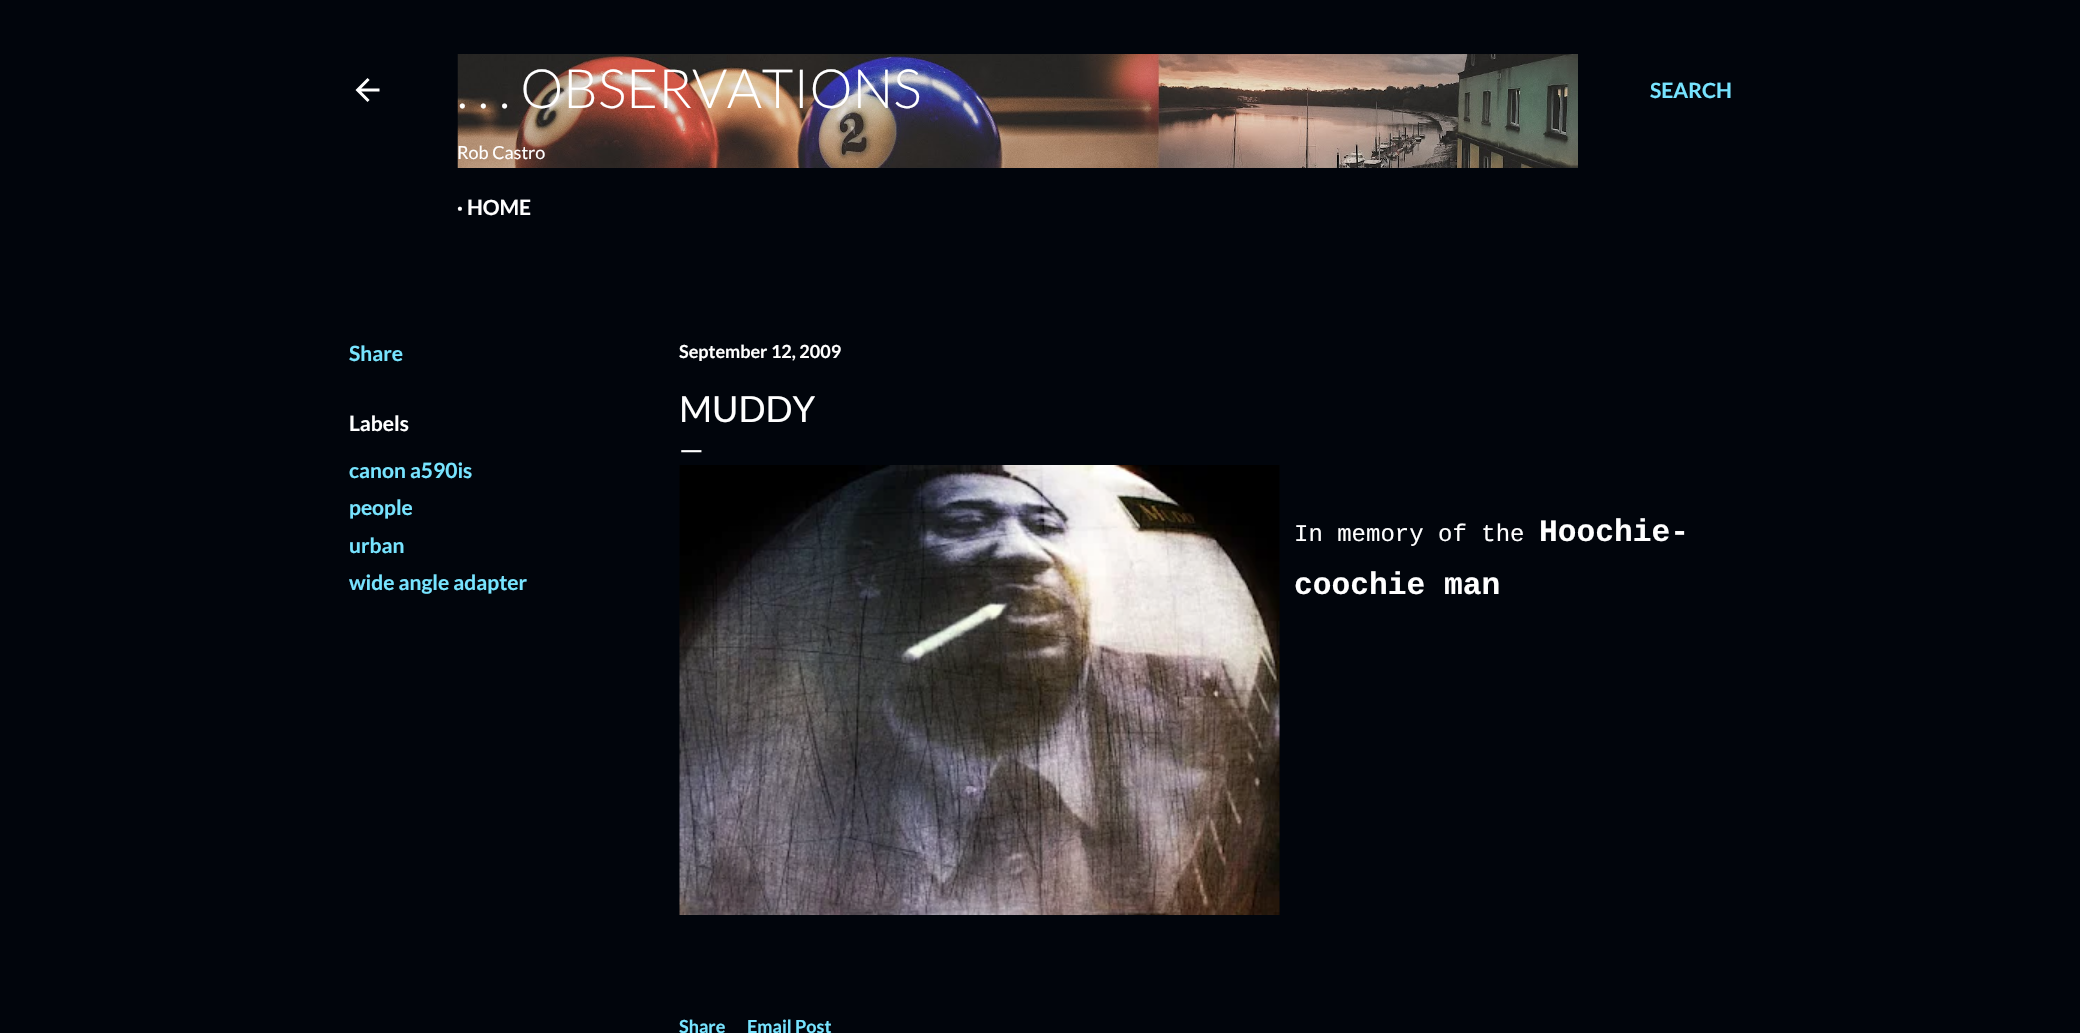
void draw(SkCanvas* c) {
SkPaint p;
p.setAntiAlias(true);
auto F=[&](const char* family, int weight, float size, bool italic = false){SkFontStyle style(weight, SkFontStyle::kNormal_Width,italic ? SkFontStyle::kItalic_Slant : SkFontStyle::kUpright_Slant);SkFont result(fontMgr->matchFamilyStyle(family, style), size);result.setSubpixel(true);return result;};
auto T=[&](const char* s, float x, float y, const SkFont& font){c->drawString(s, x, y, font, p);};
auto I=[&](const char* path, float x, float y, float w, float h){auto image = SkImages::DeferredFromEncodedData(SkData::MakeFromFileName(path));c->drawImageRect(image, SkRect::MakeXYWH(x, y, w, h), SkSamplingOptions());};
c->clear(0xff01050c);
I("1.png",355,78,25,24);
I("2.png",457,54,1121,114);
auto f1 = F("Lato",300,54);
p.setColor(0xffffffff);
T(". . . OBSERVATIONS",457,108,f1);
auto f2 = F("Lato",400,18);
T("Rob Castro",457,159,f2);
auto f3 = F("Lato",700,21);
T("· HOME",457,215,f3);
p.setColor(0xff77e4ff);
T("SEARCH",1650,98,f3);
T("Share",349,361,f3);
p.setColor(0xffffffff);
T("Labels",349,431,f3);
p.setColor(0xff77e4ff);
T("canon a590is",349,478,f3);
T("people",349,515,f3);
T("urban",349,553,f3);
T("wide angle adapter",349,590,f3);
auto f4 = F("Lato",700,18);
p.setColor(0xffffffff);
T("September 12, 2009",679,358,f4);
auto f5 = F("Lato",400,36);
T("MUDDY",679,422,f5);
auto f6 = F("Lato",400,30);
T("—",679,460,f6);
I("3.png",679,465,601,450);
auto f7 = F("Liberation Mono",400,24);
T("In memory of the",1294,541,f7);
auto f8 = F("Liberation Mono",700,31.25);
T("Hoochie-",1539,541,f8);
T("coochie man",1294,594,f8);
p.setColor(0xff77e4ff);
T("Share",679,1033,f4);
T("Email Post",747,1033,f4);
}
